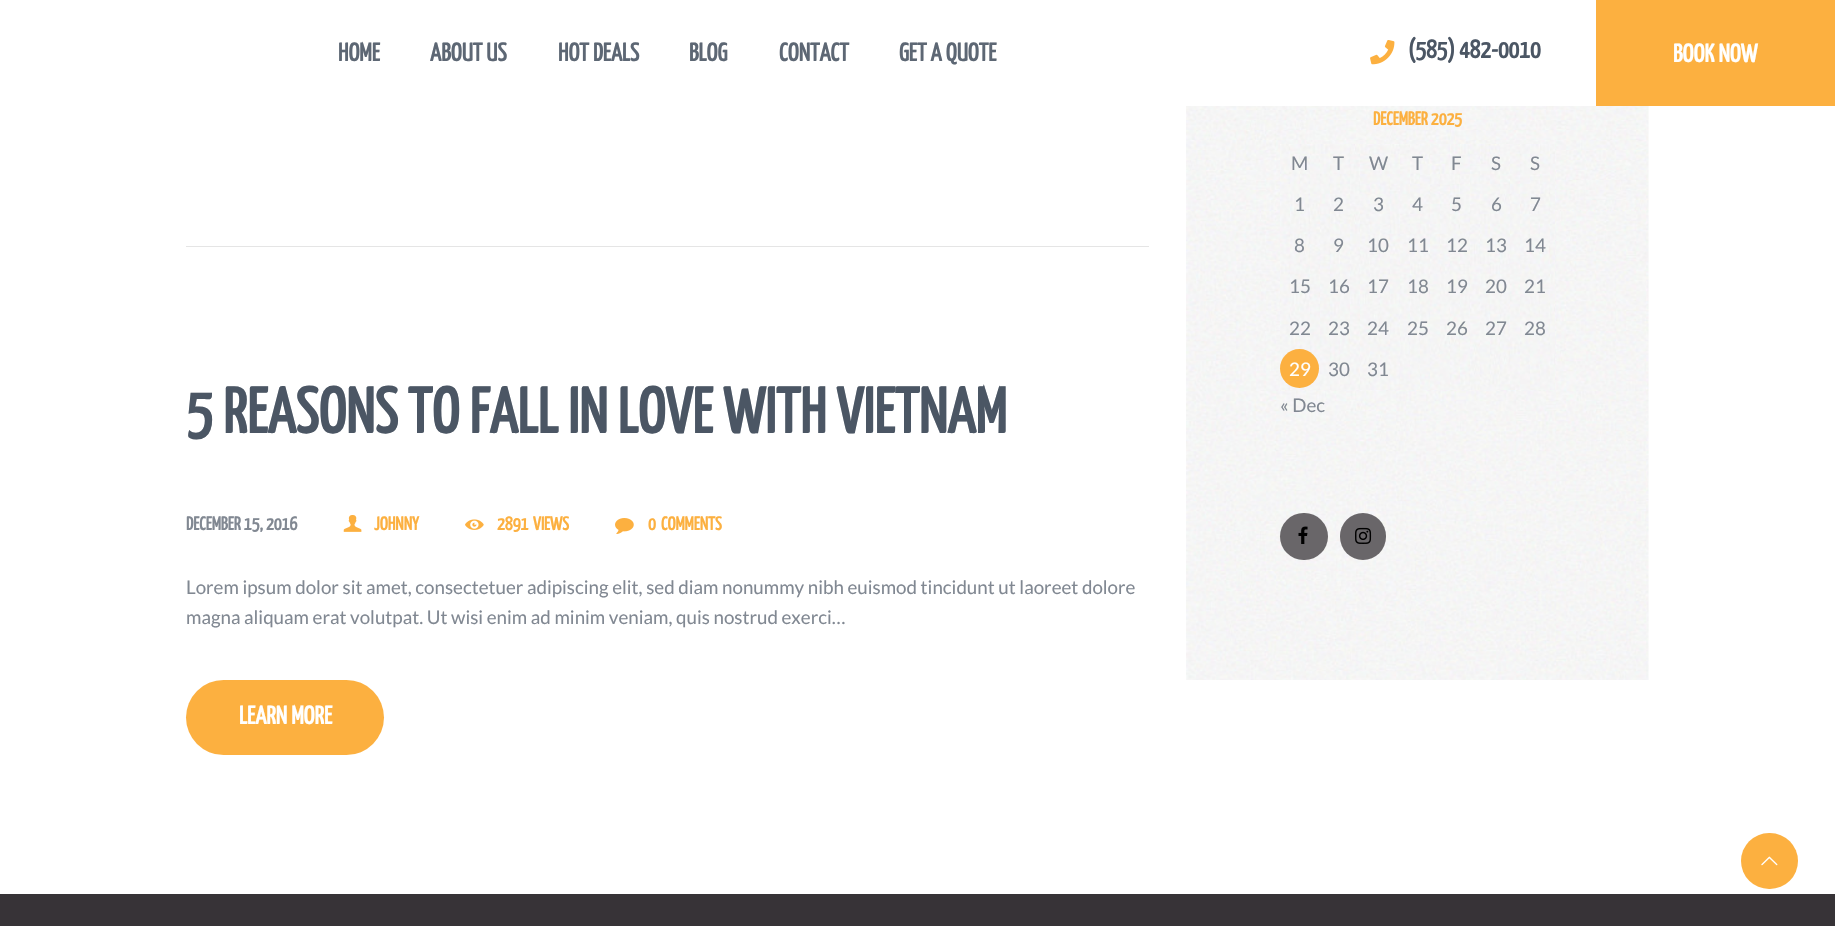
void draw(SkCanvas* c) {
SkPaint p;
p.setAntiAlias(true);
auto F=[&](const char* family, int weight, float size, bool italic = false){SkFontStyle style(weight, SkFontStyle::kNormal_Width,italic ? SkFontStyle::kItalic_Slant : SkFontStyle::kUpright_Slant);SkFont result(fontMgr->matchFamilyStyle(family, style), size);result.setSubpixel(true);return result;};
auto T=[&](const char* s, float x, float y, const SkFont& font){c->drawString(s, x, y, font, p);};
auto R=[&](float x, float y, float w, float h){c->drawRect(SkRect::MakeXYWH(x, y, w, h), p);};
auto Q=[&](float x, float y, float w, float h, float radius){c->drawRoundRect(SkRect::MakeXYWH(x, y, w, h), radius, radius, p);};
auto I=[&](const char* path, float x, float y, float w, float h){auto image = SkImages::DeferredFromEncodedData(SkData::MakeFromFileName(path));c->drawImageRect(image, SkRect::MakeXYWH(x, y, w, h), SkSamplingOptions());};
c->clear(0xffffffff);
auto f1 = F("Yanone Kaffeesatz",700,25.5);
p.setColor(0xff5d6774);
T("HOME",338,61,f1);
T("ABOUT US",430,61,f1);
T("HOT DEALS",558,61,f1);
T("BLOG",689,61,f1);
T("CONTACT",779,61,f1);
T("GET A QUOTE",899,61,f1);
I("1.png",1370,40,25,25);
p.setColor(0xff4b5664);
T("(585) 482-0010",1408,58,f1);
p.setColor(0xfffcb040);
R(1596,0,239,106);
p.setColor(0xffffffff);
T("BOOK NOW",1673,62,f1);
I("2.png",1186,106,463,574);
I("3.png",1280,144,275,246);
auto f2 = F("Yanone Kaffeesatz",700,18.75);
p.setColor(0xfffcb040);
T("DECEMBER 2025",1373,125,f2);
auto f3 = F("Lato",400,18.75);
p.setColor(0xff818892);
T("M",1291,170,f3);
T("T",1333,170,f3);
T("W",1369,170,f3);
T("T",1412,170,f3);
T("F",1451,170,f3);
T("S",1491,170,f3);
T("S",1530,170,f3);
T("1",1294,211,f3);
T("2",1333,211,f3);
T("3",1373,211,f3);
T("4",1412,211,f3);
T("5",1451,211,f3);
T("6",1491,211,f3);
T("7",1530,211,f3);
T("8",1294,252,f3);
T("9",1333,252,f3);
T("10",1367,252,f3);
T("11",1407,252,f3);
T("12",1446,252,f3);
T("13",1485,252,f3);
T("14",1524,252,f3);
T("15",1289,293,f3);
T("16",1328,293,f3);
T("17",1367,293,f3);
T("18",1407,293,f3);
T("19",1446,293,f3);
T("20",1485,293,f3);
T("21",1524,293,f3);
T("22",1289,335,f3);
T("23",1328,335,f3);
T("24",1367,335,f3);
T("25",1407,335,f3);
T("26",1446,335,f3);
T("27",1485,335,f3);
T("28",1524,335,f3);
p.setColor(0xfffcb040);
c->drawCircle(1299.5,368.5,19.5,p);
p.setColor(0xffffffff);
T("29",1289,376,f3);
p.setColor(0xff818892);
T("30",1328,376,f3);
T("31",1367,376,f3);
T("« Dec",1280,412,f3);
p.setColor(0xff696669);
Q(1280,513,48,47,23.5);
I("4.png",1298,526,10,18);
Q(1340,513,46,47,23);
I("5.png",1355,527,17,17);
p.setColor(0xffe5e5e5);
R(186,246,963,1);
auto f4 = F("Yanone Kaffeesatz",700,64.25);
p.setColor(0xff4b5664);
T("5 REASONS TO FALL IN LOVE WITH VIETNAM",186,433,f4);
p.setColor(0xff818892);
T("DECEMBER 15, 2016",186,530,f2);
I("6.png",343,515,19,17);
p.setColor(0xfffcb040);
T("JOHNNY",374,530,f2);
I("7.png",465,519,19,11);
T("2891",497,530,f2);
T("VIEWS",533,530,f2);
I("8.png",615,518,19,16);
T("0",648,530,f2);
T("COMMENTS",661,530,f2);
p.setColor(0xff818892);
T("Lorem ipsum dolor sit amet, consectetuer adipiscing elit, sed diam nonummy nibh euismod tincidunt ut laoreet dolore",186,594,f3);
T("magna aliquam erat volutpat. Ut wisi enim ad minim veniam, quis nostrud exerci…",186,624,f3);
p.setColor(0xfffcb040);
Q(186,680,198,75,37.5);
p.setColor(0xffffffff);
T("LEARN MORE",239,724,f1);
p.setColor(0xff373337);
R(0,894,1835,32);
p.setColor(0xfffcb040);
Q(1741,833,57,56,28);
I("9.png",1761,856,17,10);
}
